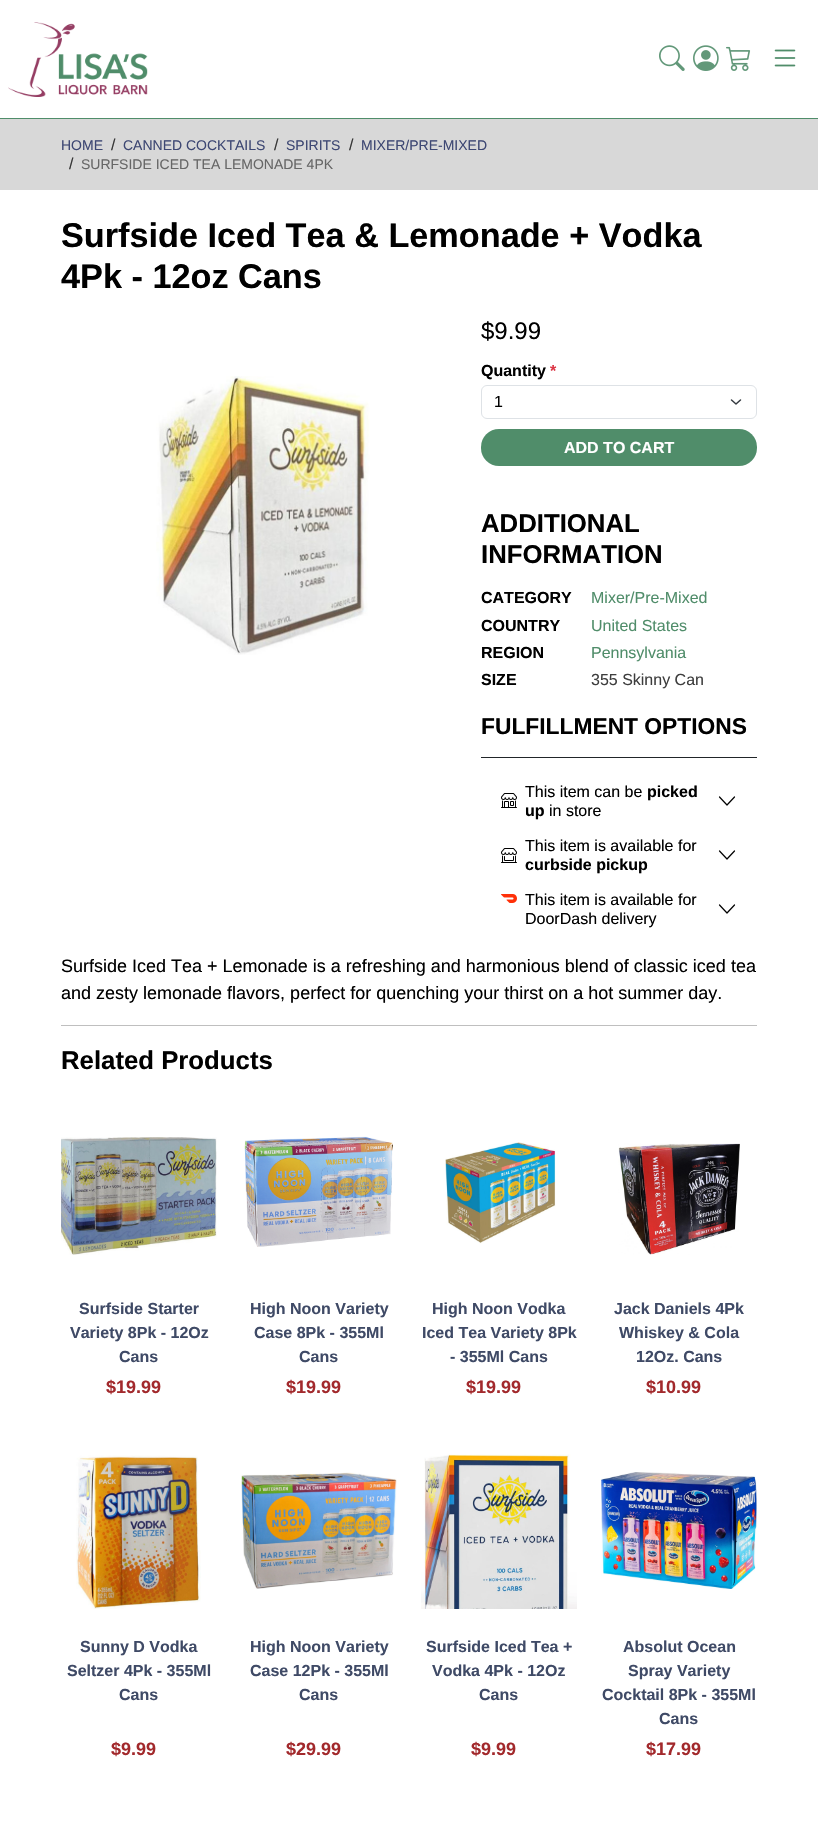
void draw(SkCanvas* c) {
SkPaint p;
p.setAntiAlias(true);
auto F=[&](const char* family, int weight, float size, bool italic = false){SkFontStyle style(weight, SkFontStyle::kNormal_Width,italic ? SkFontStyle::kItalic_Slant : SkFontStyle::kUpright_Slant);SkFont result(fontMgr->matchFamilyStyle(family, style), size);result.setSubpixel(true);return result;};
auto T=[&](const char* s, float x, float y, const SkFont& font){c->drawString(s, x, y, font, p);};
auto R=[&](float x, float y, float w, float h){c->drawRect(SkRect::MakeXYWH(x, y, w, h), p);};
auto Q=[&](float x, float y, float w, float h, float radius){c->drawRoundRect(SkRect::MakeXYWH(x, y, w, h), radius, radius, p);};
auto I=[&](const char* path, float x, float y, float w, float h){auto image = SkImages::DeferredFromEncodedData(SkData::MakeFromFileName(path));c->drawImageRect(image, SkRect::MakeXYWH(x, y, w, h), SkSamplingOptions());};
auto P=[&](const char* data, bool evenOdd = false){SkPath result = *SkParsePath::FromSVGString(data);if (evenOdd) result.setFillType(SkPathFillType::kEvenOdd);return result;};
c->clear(0xffffffff);
p.setColor(0xff508d6a);
R(0,118,818,1);
I("1.png",8,22,140,75);
I("2.png",659,45,26,26);
I("3.png",693,45,26,26);
I("4.png",726,46,25,25);
I("5.png",774,49,22,18);
p.setColor(0xffd8d8d8);
R(0,119,818,71);
auto f1 = F("Liberation Sans",400,14);
p.setColor(0xff3d4773);
T("HOME",61,150,f1);
auto f2 = F("Liberation Sans",400,16);
p.setColor(0xff363636);
T("/",111,150,f2);
p.setColor(0xff3d4773);
T("CANNED COCKTAILS",123,150,f1);
p.setColor(0xff363636);
T("/",274,150,f2);
p.setColor(0xff3d4773);
T("SPIRITS",286,150,f1);
p.setColor(0xff363636);
T("/",349,150,f2);
p.setColor(0xff3d4773);
T("MIXER/PRE-MIXED",361,150,f1);
p.setColor(0xff363636);
T("/",69,169,f2);
p.setColor(0xff676767);
T("SURFSIDE ICED TEA LEMONADE 4PK",81,169,f1);
auto f3 = F("Liberation Sans",700,34.25);
p.setColor(0xff000000);
T("Surfside Iced Tea & Lemonade + Vodka",61,247,f3);
T("4Pk - 12oz Cans",61,288,f3);
I("6.png",156,376,214,279);
auto f4 = F("Liberation Sans",400,24);
T("$9.99",481,339,f4);
auto f5 = F("Liberation Sans",700,16);
T("Quantity",481,376,f5);
p.setColor(0xffdc3545);
T("*",550,376,f5);
p.setStroke(true);
p.setStrokeWidth(1.5);
p.setStrokeCap(SkPaint::kRound_Cap);
p.setStrokeJoin(SkPaint::kRound_Join);
p.setColor(0xff343a40);
c->drawPath(P("M731.5 400l4.5 4l4.5-4"),p);
p.setStrokeWidth(1);
p.setStrokeCap(SkPaint::kButt_Cap);
p.setStrokeJoin(SkPaint::kMiter_Join);
p.setColor(0xffdee2e6);
c->drawRoundRect(SkRect::MakeXYWH(481.5,385.5,275,33),5.5,5.5,p);
p.setStroke(false);
p.setColor(0xff000000);
T("1",494,407,f2);
p.setColor(0xff508d6a);
Q(481,429,276,37,18);
p.setColor(0xffffffff);
T("ADD TO CART",564,453,f5);
auto f6 = F("Liberation Sans",700,25.75);
p.setColor(0xff000000);
T("ADDITIONAL",481,532,f6);
T("INFORMATION",481,563,f6);
T("CATEGORY",481,603,f5);
p.setColor(0xff508d6a);
T("Mixer/Pre-Mixed",591,603,f2);
p.setColor(0xff000000);
T("COUNTRY",481,631,f5);
p.setColor(0xff508d6a);
T("United States",591,631,f2);
p.setColor(0xff000000);
T("REGION",481,658,f5);
p.setColor(0xff508d6a);
T("Pennsylvania",591,658,f2);
p.setColor(0xff000000);
T("SIZE",481,685,f5);
p.setColor(0xff3e3e3e);
T("355 Skinny Can",591,685,f2);
auto f7 = F("Liberation Sans",700,22.8);
p.setColor(0xff000000);
T("FULFILLMENT OPTIONS",481,734,f7);
p.setColor(0xff212529);
R(481,757,276,1);
I("7.png",501,793,16,15);
p.setColor(0xff000000);
T("This item can be",525,797,f2);
T("picked",647,797,f5);
T("up",525,816,f5);
T("in store",549,816,f2);
p.setStroke(true);
p.setStrokeWidth(1.2);
p.setStrokeCap(SkPaint::kRound_Cap);
p.setStrokeJoin(SkPaint::kRound_Join);
c->drawPath(P("M719.5 797l7.5 8l7.5-8"),p);
I("8.png",501,848,16,15);
p.setStroke(false);
T("This item is available for",525,851,f2);
T("curbside pickup",525,870,f5);
p.setStroke(true);
c->drawPath(P("M719.5 851l7.5 8l7.5-8"),p);
I("9.png",501,894,16,9);
p.setStroke(false);
T("This item is available for",525,905,f2);
T("DoorDash delivery",525,924,f2);
p.setStroke(true);
c->drawPath(P("M719.5 905l7.5 8l7.5-8"),p);
auto f8 = F("Liberation Sans",400,18);
p.setStroke(false);
T("Surfside Iced Tea + Lemonade is a refreshing and harmonious blend of classic iced tea",61,972,f8);
T("and zesty lemonade flavors, perfect for quenching your thirst on a hot summer day.",61,999,f8);
p.setColor(0xffbfbfbf);
R(61,1025,696,1);
p.setColor(0xff000000);
T("Related Products",61,1069,f6);
I("10.png",61,1137,156,118);
p.setColor(0xff3f4a66);
T("Surfside Starter",79,1314,f5);
T("Variety 8Pk - 12Oz",70,1338,f5);
T("Cans",119,1362,f5);
auto f9 = F("Liberation Sans",700,18);
p.setColor(0xffa2292c);
T("$19.99",106,1393,f9);
I("11.png",244,1136,149,111);
p.setColor(0xff3f4a66);
T("High Noon Variety",250,1314,f5);
T("Case 8Pk - 355Ml",254,1338,f5);
T("Cans",299,1362,f5);
p.setColor(0xffa2292c);
T("$19.99",286,1393,f9);
I("12.png",445,1142,111,102);
p.setColor(0xff3f4a66);
T("High Noon Vodka",432,1314,f5);
T("Iced Tea Variety 8Pk",422,1338,f5);
T("- 355Ml Cans",450,1362,f5);
p.setColor(0xffa2292c);
T("$19.99",466,1393,f9);
I("13.png",618,1143,122,112);
p.setColor(0xff3f4a66);
T("Jack Daniels 4Pk",614,1314,f5);
T("Whiskey & Cola",619,1338,f5);
T("12Oz. Cans",636,1362,f5);
p.setColor(0xffa2292c);
T("$10.99",646,1393,f9);
I("14.png",76,1455,125,154);
p.setColor(0xff3f4a66);
T("Sunny D Vodka",80,1652,f5);
T("Seltzer 4Pk - 355Ml",67,1676,f5);
T("Cans",119,1700,f5);
p.setColor(0xffa2292c);
T("$9.99",111,1755,f9);
I("15.png",241,1472,156,117);
p.setColor(0xff3f4a66);
T("High Noon Variety",250,1652,f5);
T("Case 12Pk - 355Ml",250,1676,f5);
T("Cans",299,1700,f5);
p.setColor(0xffa2292c);
T("$29.99",286,1755,f9);
I("16.png",421,1454,156,155);
p.setColor(0xff3f4a66);
T("Surfside Iced Tea +",426,1652,f5);
T("Vodka 4Pk - 12Oz",432,1676,f5);
T("Cans",479,1700,f5);
p.setColor(0xffa2292c);
T("$9.99",471,1755,f9);
I("17.png",601,1472,156,117);
p.setColor(0xff3f4a66);
T("Absolut Ocean",623,1652,f5);
T("Spray Variety",628,1676,f5);
T("Cocktail 8Pk - 355Ml",602,1700,f5);
T("Cans",659,1724,f5);
p.setColor(0xffa2292c);
T("$17.99",646,1755,f9);
}
